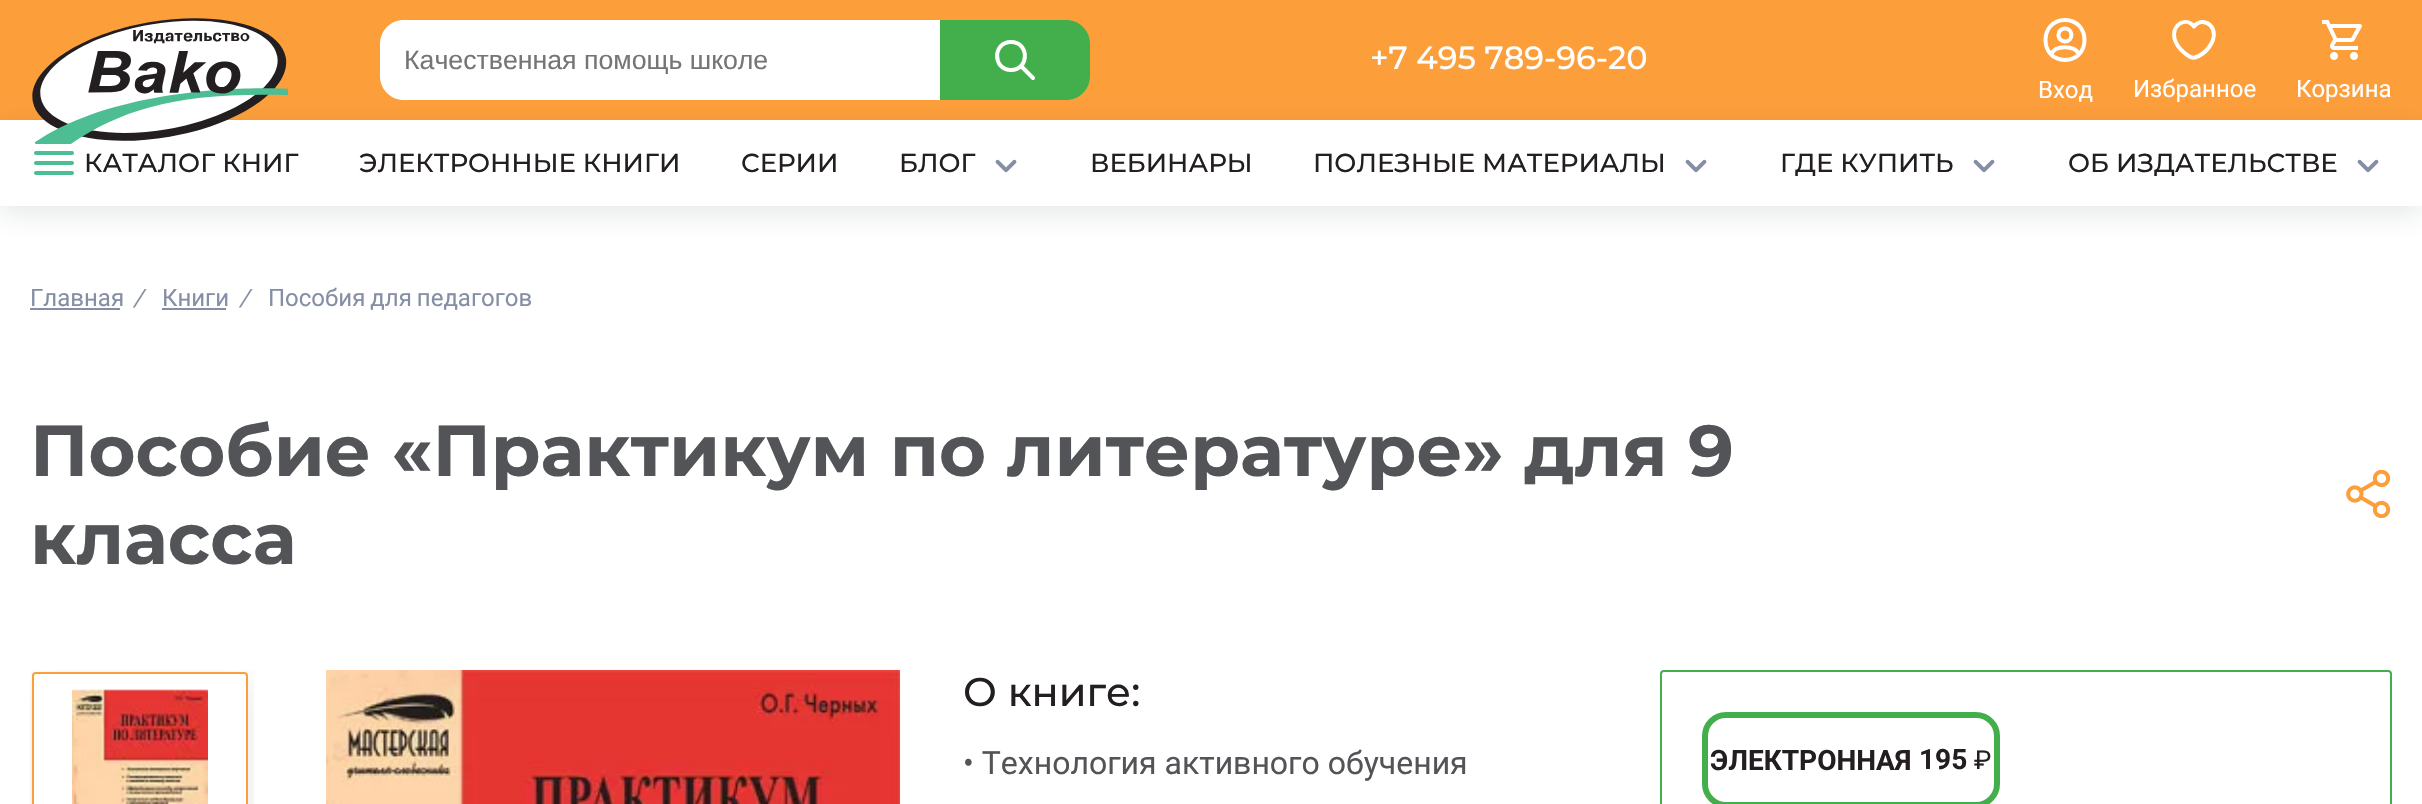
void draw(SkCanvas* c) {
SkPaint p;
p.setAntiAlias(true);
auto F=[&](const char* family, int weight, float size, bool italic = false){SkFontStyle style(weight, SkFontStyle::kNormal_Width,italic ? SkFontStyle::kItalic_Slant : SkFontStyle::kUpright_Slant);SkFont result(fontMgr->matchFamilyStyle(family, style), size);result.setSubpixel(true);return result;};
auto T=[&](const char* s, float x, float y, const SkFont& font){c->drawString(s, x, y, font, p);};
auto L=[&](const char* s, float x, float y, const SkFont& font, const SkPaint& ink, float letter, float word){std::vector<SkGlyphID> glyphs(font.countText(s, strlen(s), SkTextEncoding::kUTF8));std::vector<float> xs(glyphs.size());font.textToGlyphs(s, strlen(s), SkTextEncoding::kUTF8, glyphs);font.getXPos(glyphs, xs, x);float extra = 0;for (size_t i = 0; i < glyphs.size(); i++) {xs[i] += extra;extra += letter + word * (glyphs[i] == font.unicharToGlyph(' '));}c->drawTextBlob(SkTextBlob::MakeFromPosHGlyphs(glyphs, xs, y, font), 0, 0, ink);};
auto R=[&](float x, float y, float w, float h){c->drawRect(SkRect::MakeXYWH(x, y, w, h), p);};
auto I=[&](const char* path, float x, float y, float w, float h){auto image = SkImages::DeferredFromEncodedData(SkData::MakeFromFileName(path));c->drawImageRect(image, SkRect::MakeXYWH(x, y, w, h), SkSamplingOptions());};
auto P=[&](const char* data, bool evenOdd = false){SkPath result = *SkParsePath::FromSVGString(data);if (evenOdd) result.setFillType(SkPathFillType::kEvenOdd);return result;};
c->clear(0xffffffff);
p.setColor(0xfffc9e3a);
R(0,0,2422,120);
c->save();
c->clipPath(P("M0 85h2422v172h-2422zm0 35h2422v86h-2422z",true),true);
p.setColor(0x1f2c3942);
p.setMaskFilter(SkMaskFilter::MakeBlur(kNormal_SkBlurStyle, 14));
c->drawRect(SkRect::MakeXYWH(0,128,2422,86),p);
p.setMaskFilter(nullptr);
c->restore();
I("1.png",32,18,256,126);
p.setColor(0xffffffff);
c->drawPath(P("M404 20h536v80h-536c-13.5 0-24-10.5-24-24v-32c0-13.5 10.5-24 24-24z"),p);
c->save();
c->clipRect(SkRect::MakeXYWH(404,44,532,30));
auto f1 = F("Liberation Sans",400,26.7);
p.setColor(0xff757575);
T("Качественная помощь школе",404,69,f1);
c->restore();
p.setColor(0xff43ae4c);
c->drawPath(P("M940 20h126c13.5 0 24 10.5 24 24v32c0 13.5-10.5 24-24 24h-126z"),p);
p.setStroke(true);
p.setStrokeWidth(4);
p.setStrokeCap(SkPaint::kRound_Cap);
p.setStrokeJoin(SkPaint::kRound_Join);
p.setColor(0xffffffff);
c->drawPath(P("M1011 70c18.5 0 18.5-28 0-28c-18.5 0-18.5 28 0 28zm22 8l-12-12"),p);
auto f2 = F("Montserrat",500,32);
p.setStroke(false);
T("+7 495 789-96-20",1370,69,f2);
p.setStroke(true);
c->drawPath(P("M2065 41.5l-2.5-.5c-6.5-3-4.5-12.5 2.5-12.5c8.5 0 8.5 13 0 13zm13.5 13.5c-7.5 6.5-19.5 6.5-27 0c1-10.5 26-10.5 27 0zm-13.5 5c26 0 26-40 0-40c-26 0-26 40 0 40z"),p);
auto f3 = F("Roboto",400,24);
p.setStroke(false);
T("Вход",2038,98,f3);
p.setStroke(true);
c->drawPath(P("M2195 57.5c-3.5 1.5-8.5-3-10.5-4.5c-5-4-8.5-9-10-14.5c-3-14.5 12-22 19.5-12c9-12 28.5 1.5 15.5 20c-3.5 5-8.5 9-14.5 11z"),p);
p.setStroke(false);
T("Избранное",2133,97,f3);
I("2.png",2322,20,40,40);
T("Корзина",2296,97,f3);
I("3.png",34,151,40,24);
auto f4 = F("Montserrat",500,26);
p.setColor(0xff231f20);
T("КАТАЛОГ КНИГ",84,172,f4);
T("ЭЛЕКТРОННЫЕ КНИГИ",359,172,f4);
T("СЕРИИ",741,172,f4);
T("БЛОГ",899,172,f4);
I("4.png",995,159,22,14);
T("ВЕБИНАРЫ",1090,172,f4);
T("ПОЛЕЗНЫЕ МАТЕРИАЛЫ",1313,172,f4);
I("4.png",1685,159,22,14);
T("ГДЕ КУПИТЬ",1780,172,f4);
I("4.png",1973,159,22,14);
T("ОБ ИЗДАТЕЛЬСТВЕ",2068,172,f4);
I("4.png",2357,159,22,14);
p.setColor(0xff858ea4);
T("Главная",30,306,f3);
R(30,308,90,2);
auto f5 = F("Roboto",400,24,true);
T("/",133,306,f5);
T("Книги",162,306,f3);
R(162,308,64,2);
T("/",239,306,f5);
L("Пособия для педагогов",268,306,f3,p,0,-1);
auto f6 = F("Montserrat",700,72);
p.setColor(0xff525457);
T("Пособие «Практикум по литературе» для 9",30,476,f6);
T("класса",30,564,f6);
I("5.png",2346,470,45,48);
c->save();
c->clipRect(SkRect::MakeXYWH(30,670,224,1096));
c->clipPath(P("M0 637h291v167h-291zm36 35h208c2 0 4 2 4 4v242c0 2-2 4-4 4h-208c-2 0-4-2-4-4v-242c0-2 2-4 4-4z",true),true);
p.setColor(0x1f2c3942);
p.setMaskFilter(SkMaskFilter::MakeBlur(kNormal_SkBlurStyle, 14));
c->drawRoundRect(SkRect::MakeXYWH(32,680,216,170),4,4,p);
p.setMaskFilter(nullptr);
c->restore();
p.setStroke(true);
p.setStrokeWidth(2);
p.setStrokeCap(SkPaint::kButt_Cap);
p.setStrokeJoin(SkPaint::kMiter_Join);
p.setColor(0xfffc9e3a);
c->drawRoundRect(SkRect::MakeXYWH(33,673,214,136),3,3,p);
I("6.png",72,689,136,115);
I("7.png",326,670,574,134);
auto f7 = F("Montserrat",500,40);
p.setStroke(false);
p.setColor(0xff231f20);
T("О книге:",963,706,f7);
auto f8 = F("Roboto",400,32);
p.setColor(0xff525457);
T("• Технология активного обучения",963,774,f8);
p.setStroke(true);
p.setColor(0xff43ae4c);
c->drawRoundRect(SkRect::MakeXYWH(1661,671,730,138),3,3,p);
p.setStrokeWidth(6);
c->drawRoundRect(SkRect::MakeXYWH(1705,715,292,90),21,21,p);
auto f9 = F("Roboto",700,28);
p.setStroke(false);
p.setColor(0xff231f20);
T("ЭЛЕКТРОННАЯ",1710,770,f9);
T("195",1919,769,f9);
auto f10 = F("Roboto",400,26);
T("₽",1974,769,f10);
}
